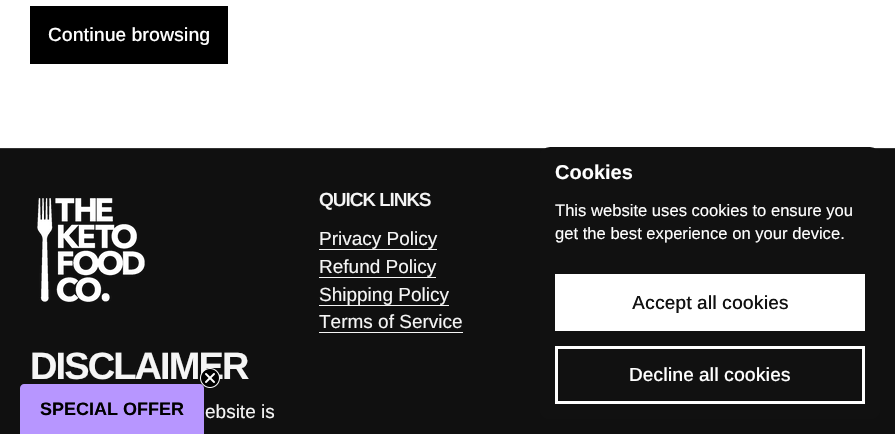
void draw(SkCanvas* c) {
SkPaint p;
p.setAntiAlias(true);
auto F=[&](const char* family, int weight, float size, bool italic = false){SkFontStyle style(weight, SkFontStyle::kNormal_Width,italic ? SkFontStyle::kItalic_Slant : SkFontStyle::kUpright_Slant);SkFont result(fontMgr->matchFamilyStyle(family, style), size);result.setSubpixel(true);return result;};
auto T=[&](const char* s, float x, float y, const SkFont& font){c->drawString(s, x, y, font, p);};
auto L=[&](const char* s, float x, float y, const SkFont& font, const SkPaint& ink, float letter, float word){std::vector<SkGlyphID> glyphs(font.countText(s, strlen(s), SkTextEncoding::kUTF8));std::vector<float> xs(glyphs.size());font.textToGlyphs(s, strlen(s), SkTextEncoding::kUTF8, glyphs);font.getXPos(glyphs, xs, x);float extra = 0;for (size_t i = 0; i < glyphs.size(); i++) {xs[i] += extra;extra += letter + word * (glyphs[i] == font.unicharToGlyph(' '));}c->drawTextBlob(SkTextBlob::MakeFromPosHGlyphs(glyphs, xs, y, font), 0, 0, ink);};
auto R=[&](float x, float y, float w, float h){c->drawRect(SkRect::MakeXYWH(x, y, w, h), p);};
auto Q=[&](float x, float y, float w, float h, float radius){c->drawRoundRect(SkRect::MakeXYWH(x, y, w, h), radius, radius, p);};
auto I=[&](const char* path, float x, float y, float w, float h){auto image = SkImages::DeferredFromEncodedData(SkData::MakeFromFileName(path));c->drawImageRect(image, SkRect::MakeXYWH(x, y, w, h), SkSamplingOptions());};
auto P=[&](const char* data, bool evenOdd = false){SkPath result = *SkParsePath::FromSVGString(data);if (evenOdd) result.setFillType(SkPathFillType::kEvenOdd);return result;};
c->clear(0xffffffff);
p.setColor(0xff000000);
R(30,6,198,58);
auto f1 = F("Arimo",500,19);
p.setColor(0xffffffff);
T("Continue browsing",48,41,f1);
p.setColor(0xff101010);
R(0,149,895,285);
p.setColor(0xff323232);
R(0,148,895,1);
auto f2 = F("Arimo",600,19);
p.setColor(0xfff5f5f5);
L("QUICK LINKS",319,206,f2,p,-1,0);
auto f3 = F("Arimo",400,19);
T("Privacy Policy",319,245,f3);
R(319,249,118,1);
T("Refund Policy",319,273,f3);
R(319,277,117,1);
T("Shipping Policy",319,301,f3);
R(319,305,130,1);
T("Terms of Service",319,328,f3);
R(319,332,144,1);
I("1.png",37,198,108,104);
auto f4 = F("Arimo",700,38);
L("DISCLAIMER",30,379,f4,p,-1.9,0);
T("ebsite is",205,418,f3);
p.setColor(0xff111111);
Q(540,147,340,272,10);
auto f5 = F("Arimo",700,20);
p.setColor(0xffffffff);
T("Cookies",555,179,f5);
auto f6 = F("Arimo",400,16.6);
T("This website uses cookies to ensure you",555,216,f6);
T("get the best experience on your device.",555,239,f6);
R(555,274,310,57);
p.setColor(0xff111111);
T("Accept all cookies",632,309,f1);
p.setStroke(true);
p.setStrokeWidth(3);
p.setColor(0xffffffff);
c->drawRect(SkRect::MakeXYWH(556.5,347.5,307,55),p);
p.setStroke(false);
T("Decline all cookies",629,381,f1);
p.setColor(0xffb796ff);
c->drawPath(P("M24 384h176c2 0 4 2 4 4v46h-184v-46c0-2 2-4 4-4z"),p);
I("2.png",200,368,20,20);
auto f7 = F("Liberation Sans",700,18);
p.setColor(0xff000000);
T("SPECIAL OFFER",40,415,f7);
}
